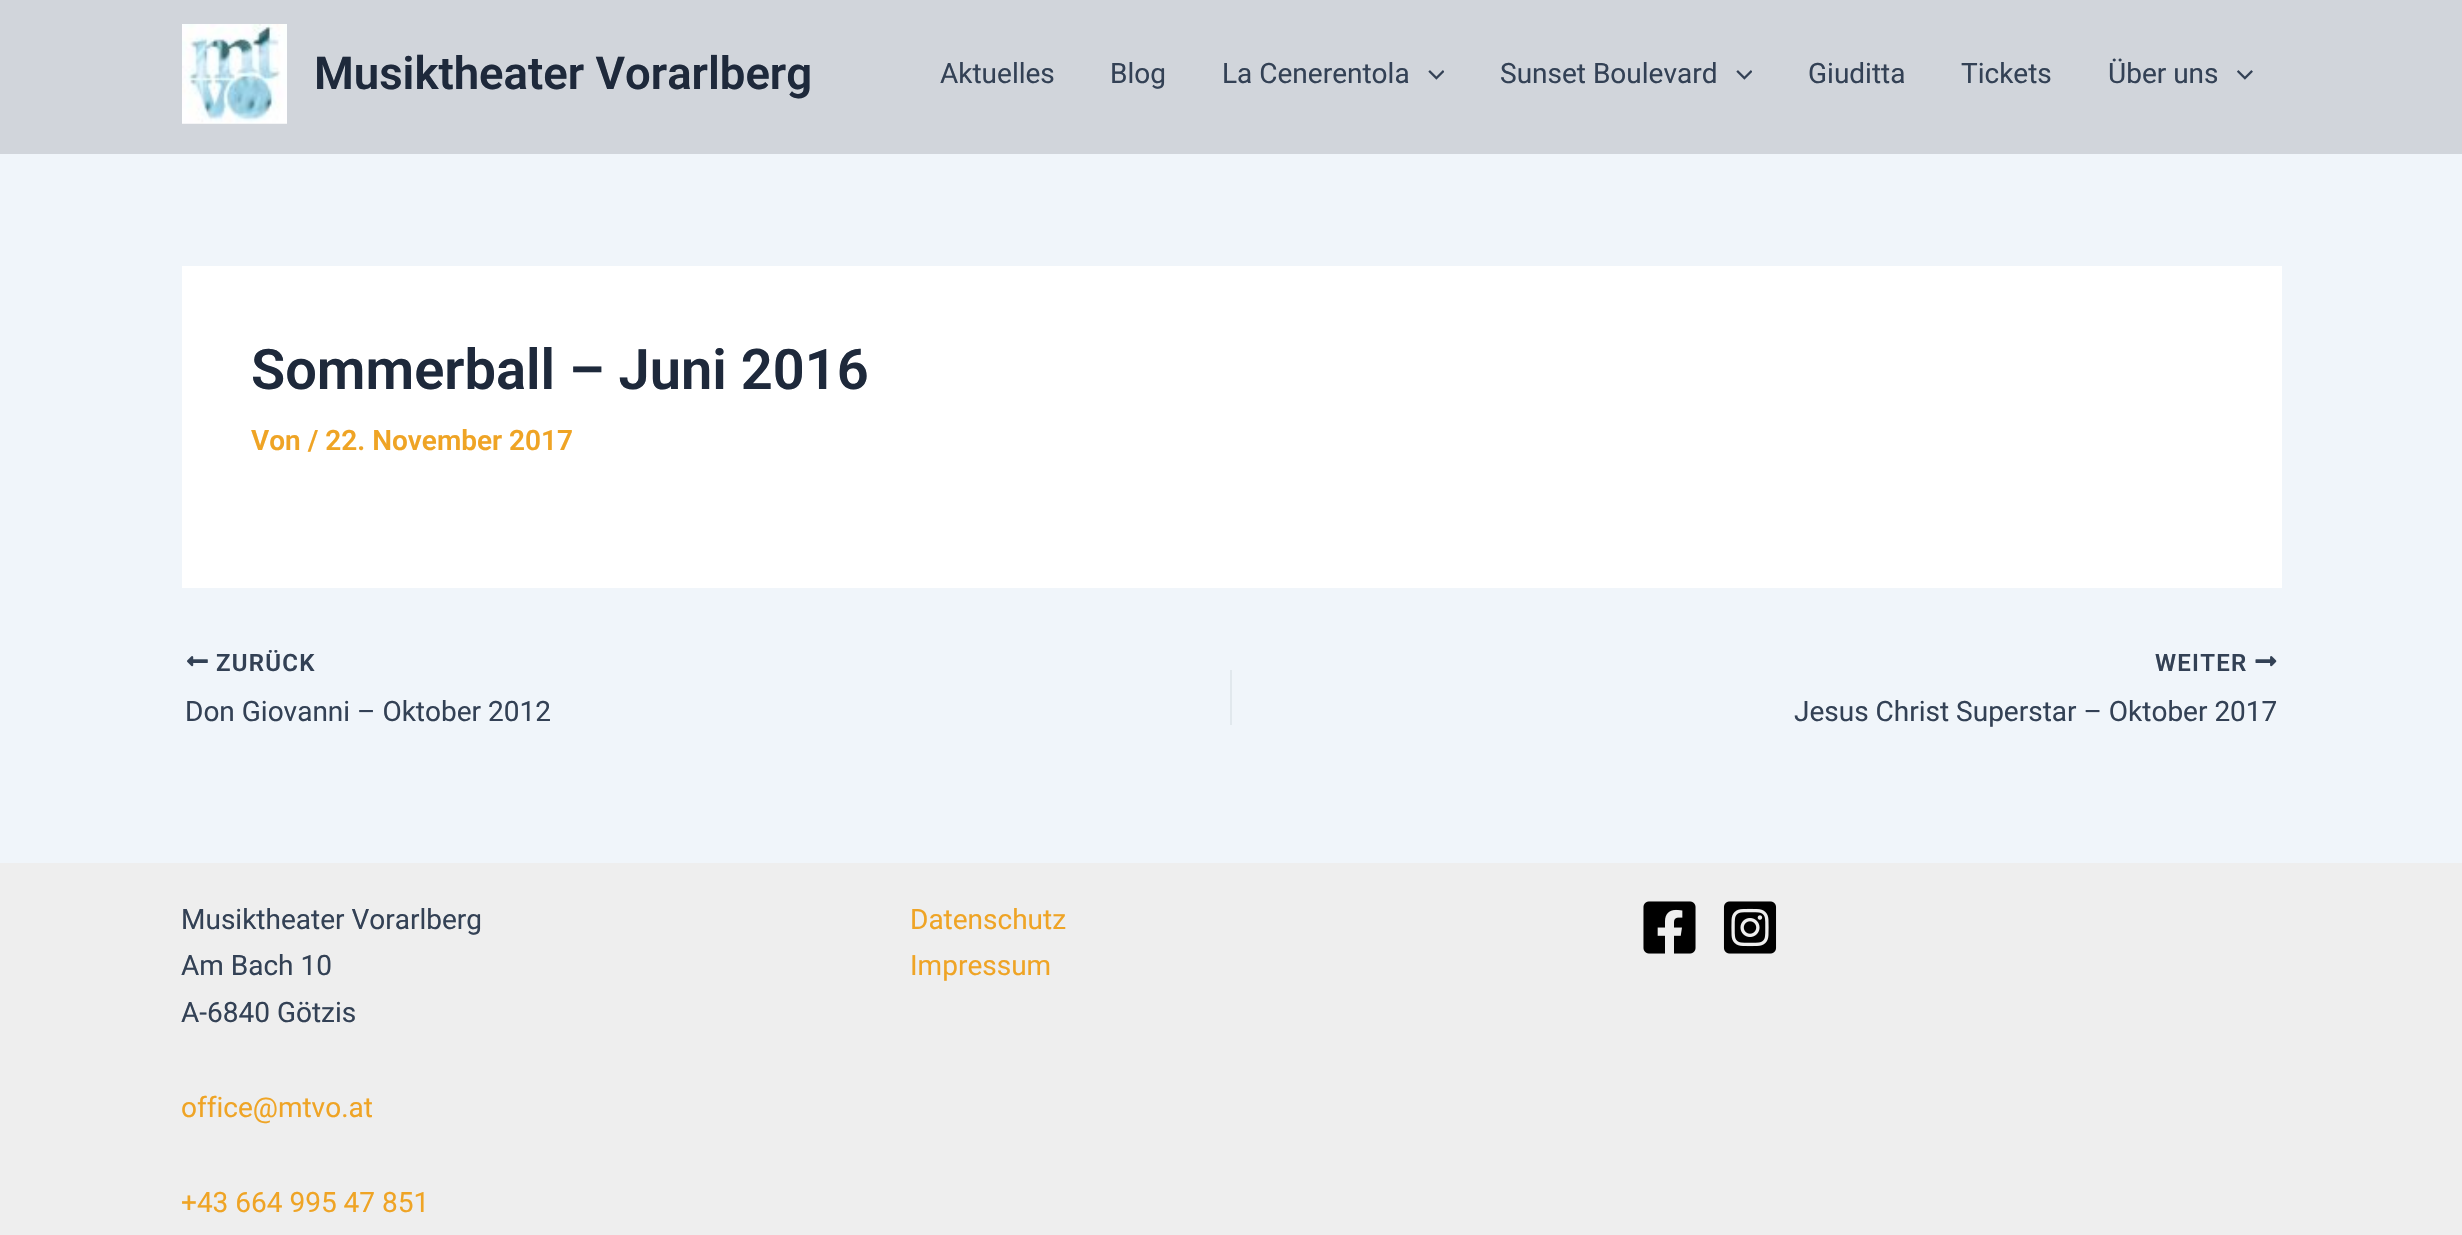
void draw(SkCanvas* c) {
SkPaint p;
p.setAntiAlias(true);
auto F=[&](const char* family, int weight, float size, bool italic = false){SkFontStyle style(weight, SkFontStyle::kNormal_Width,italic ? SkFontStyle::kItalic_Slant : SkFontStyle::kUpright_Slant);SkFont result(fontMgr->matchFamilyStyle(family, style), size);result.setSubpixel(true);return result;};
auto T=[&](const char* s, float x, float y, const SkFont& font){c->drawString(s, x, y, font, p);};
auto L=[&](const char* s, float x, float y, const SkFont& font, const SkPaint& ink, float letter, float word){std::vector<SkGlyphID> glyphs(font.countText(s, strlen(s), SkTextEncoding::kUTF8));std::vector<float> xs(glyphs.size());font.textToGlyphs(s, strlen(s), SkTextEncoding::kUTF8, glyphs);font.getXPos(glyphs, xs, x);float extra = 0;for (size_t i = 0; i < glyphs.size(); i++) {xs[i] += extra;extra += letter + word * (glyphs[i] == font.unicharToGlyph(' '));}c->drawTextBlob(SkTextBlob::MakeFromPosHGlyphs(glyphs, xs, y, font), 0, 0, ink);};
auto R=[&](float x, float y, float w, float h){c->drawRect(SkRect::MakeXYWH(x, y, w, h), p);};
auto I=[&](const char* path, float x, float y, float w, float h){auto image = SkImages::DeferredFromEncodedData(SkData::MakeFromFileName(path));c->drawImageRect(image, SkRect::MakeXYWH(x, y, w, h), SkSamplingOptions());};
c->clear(0xfff0f5fa);
p.setColor(0xffd1d5db);
R(0,0,2462,154);
I("1.png",182,24,105,100);
auto f1 = F("Roboto",600,45.5);
p.setColor(0xff1e293b);
T("Musiktheater Vorarlberg",314,89,f1);
auto f2 = F("Roboto",400,28);
p.setColor(0xff334155);
T("Aktuelles",940,83,f2);
T("Blog",1110,83,f2);
T("La Cenerentola",1222,83,f2);
I("2.png",1428,70,16,10);
T("Sunset Boulevard",1500,83,f2);
I("2.png",1736,70,16,10);
T("Giuditta",1808,83,f2);
T("Tickets",1961,83,f2);
T("Über uns",2108,83,f2);
I("3.png",2237,70,16,10);
p.setColor(0xffffffff);
R(182,266,2100,322);
auto f3 = F("Roboto",600,56);
p.setColor(0xff1e293b);
T("Sommerball – Juni 2016",251,389,f3);
auto f4 = F("Roboto",600,28);
p.setColor(0xffefa425);
T("Von / 22. November 2017",251,450,f4);
I("4.png",187,656,21,11);
auto f5 = F("Roboto",600,24);
p.setColor(0xff334155);
L("ZURÜCK",216,671,f5,p,1.25,0);
T("Don Giovanni – Oktober 2012",185,721,f2);
p.setColor(0xffe1e8ed);
R(1230,670,2,55);
p.setColor(0xff334155);
L("WEITER",2155,671,f5,p,1.25,0);
I("5.png",2255,656,22,11);
T("Jesus Christ Superstar – Oktober 2017",1794,721,f2);
p.setColor(0xffeeeeee);
R(0,863,2462,372);
p.setColor(0xff334155);
T("Musiktheater Vorarlberg",181,929,f2);
T("Am Bach 10",181,975,f2);
T("A-6840 Götzis",181,1022,f2);
p.setColor(0xffefa425);
T("office@mtvo.at",181,1117,f2);
T("+43 664 995 47 851",181,1212,f2);
T("Datenschutz",910,929,f2);
T("Impressum",910,975,f2);
I("6.png",1643,901,53,53);
I("7.png",1723,901,54,53);
}
